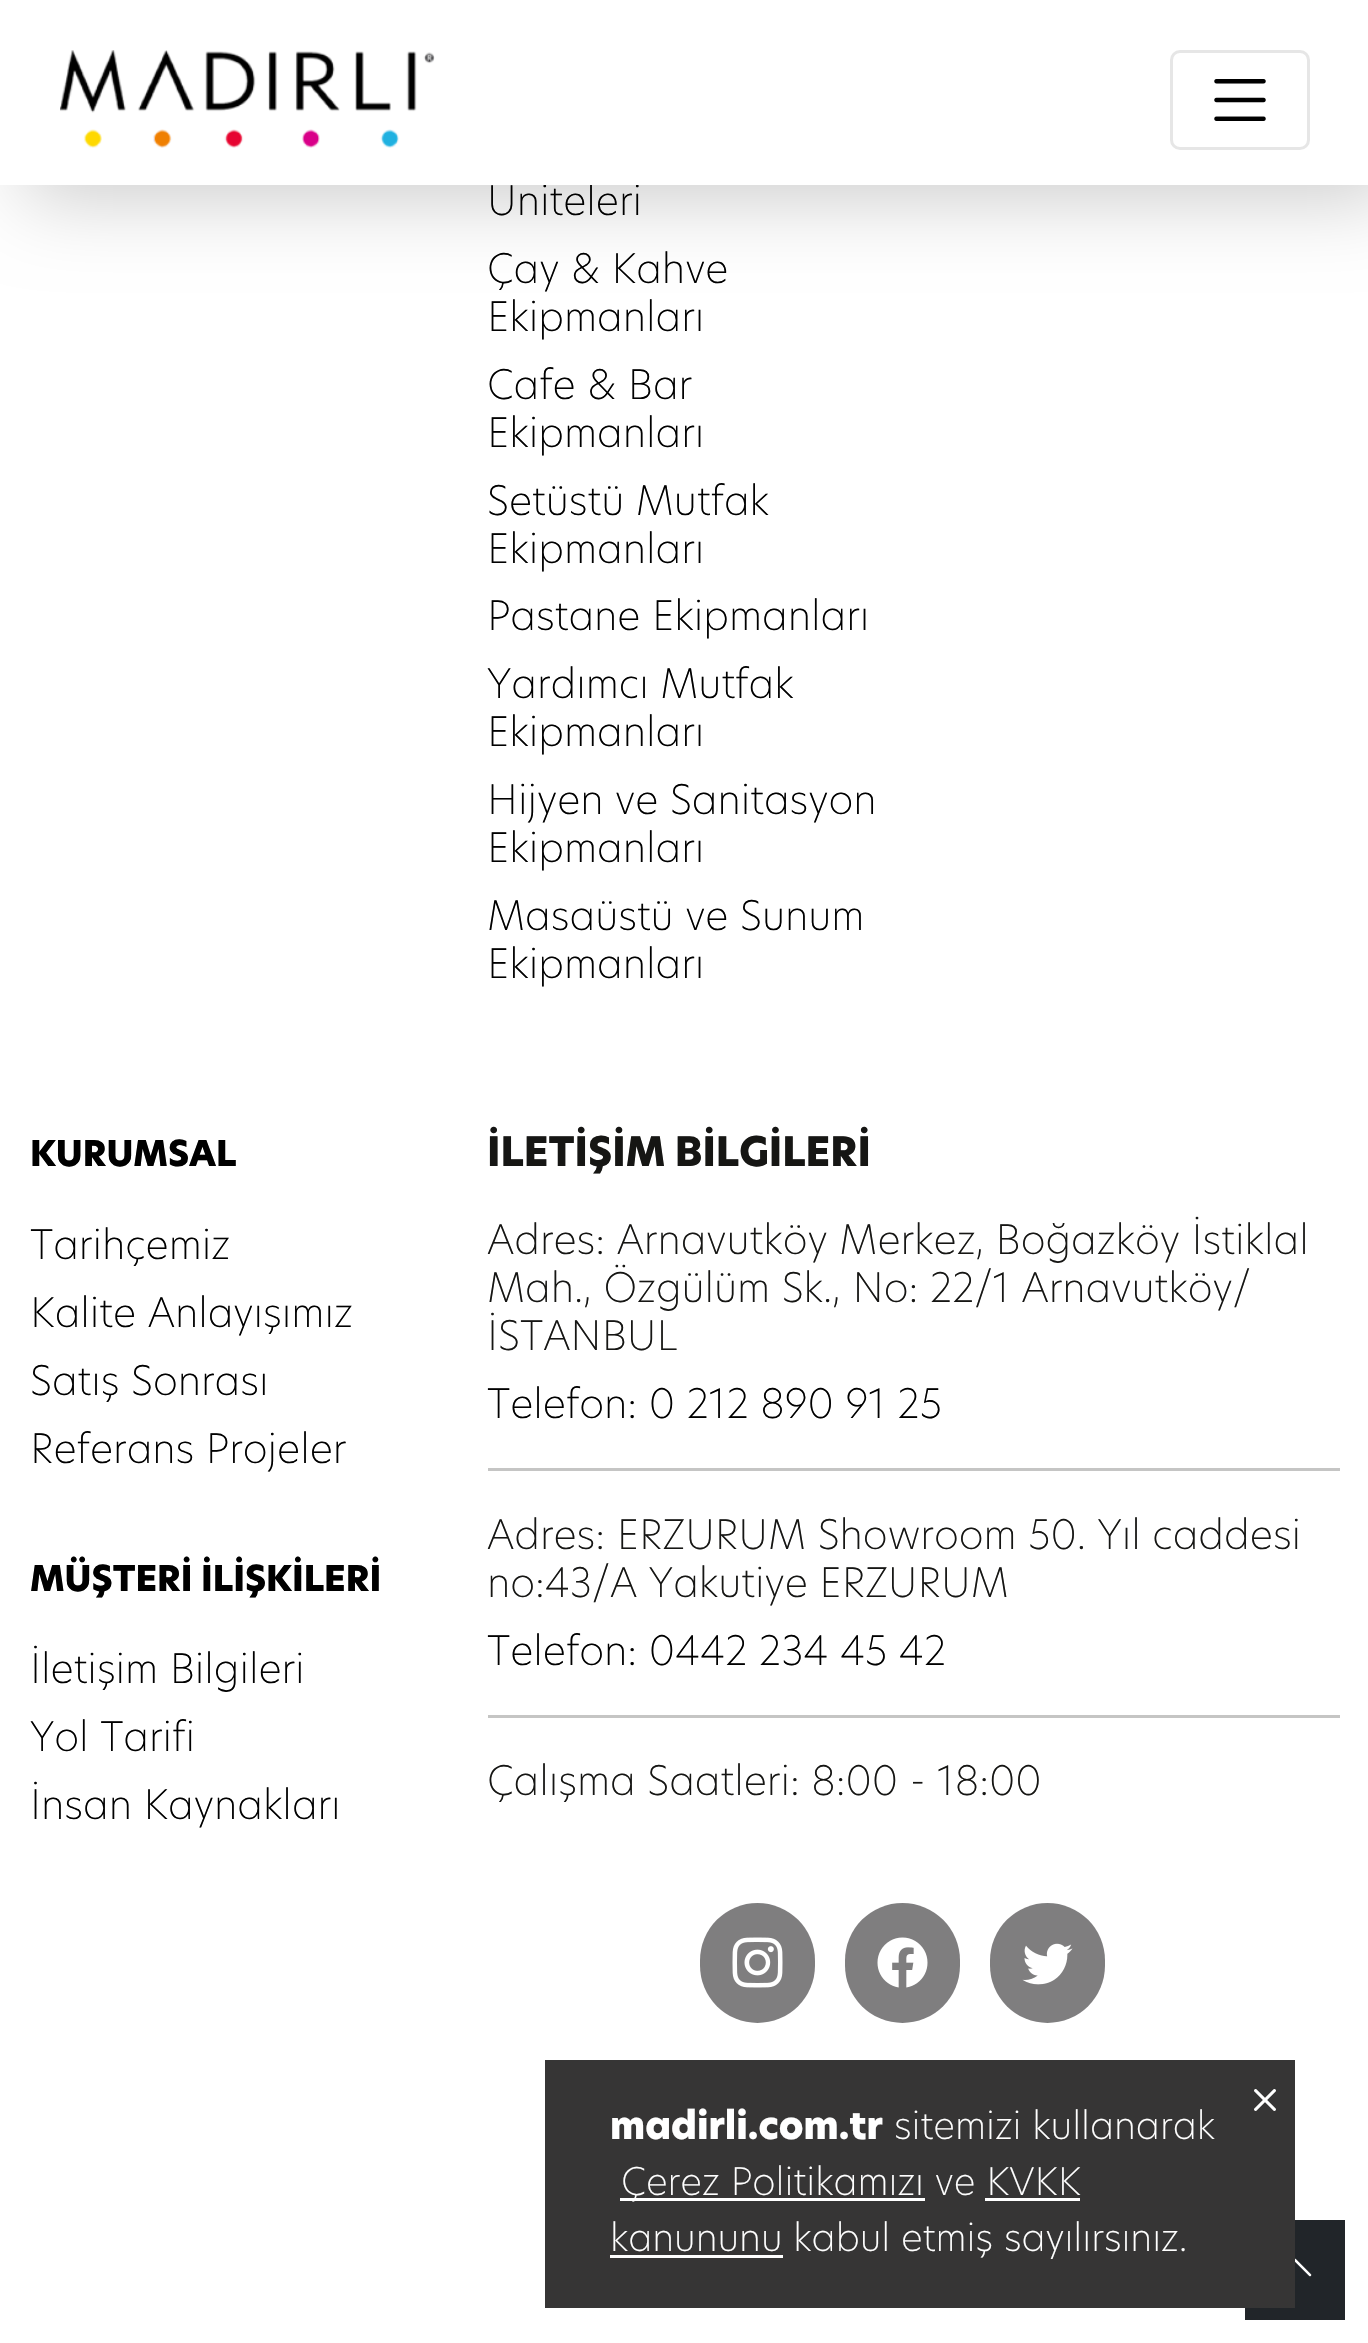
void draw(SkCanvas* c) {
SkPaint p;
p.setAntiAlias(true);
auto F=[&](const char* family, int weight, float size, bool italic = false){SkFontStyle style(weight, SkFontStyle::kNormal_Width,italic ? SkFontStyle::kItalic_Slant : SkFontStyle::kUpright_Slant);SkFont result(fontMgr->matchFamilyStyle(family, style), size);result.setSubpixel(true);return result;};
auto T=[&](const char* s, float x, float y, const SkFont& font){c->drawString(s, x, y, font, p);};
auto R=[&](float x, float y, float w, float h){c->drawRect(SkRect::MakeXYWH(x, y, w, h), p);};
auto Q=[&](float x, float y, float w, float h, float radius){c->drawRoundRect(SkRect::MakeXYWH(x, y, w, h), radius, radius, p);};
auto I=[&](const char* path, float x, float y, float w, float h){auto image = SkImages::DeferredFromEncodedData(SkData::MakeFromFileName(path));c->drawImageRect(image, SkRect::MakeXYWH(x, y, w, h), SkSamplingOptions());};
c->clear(0xffffffff);
p.setColor(0xffcccccc);
p.setMaskFilter(SkMaskFilter::MakeBlur(kNormal_SkBlurStyle, 40));
c->drawRect(SkRect::MakeXYWH(25,13,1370,185),p);
p.setMaskFilter(nullptr);
auto f1 = F("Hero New",200,40);
p.setColor(0xff000000);
T("Üniteleri",487,215,f1);
p.setColor(0xffffffff);
R(0,0,1368,185);
I("1.png",60,50,375,98);
p.setStroke(true);
p.setStrokeWidth(3);
p.setColor(0xffe6e6e6);
c->drawRoundRect(SkRect::MakeXYWH(1171.5,51.5,137,97),8.5,8.5,p);
I("2.png",1214,79,52,42);
p.setStroke(false);
p.setColor(0xff000000);
T("Çay & Kahve",487,283,f1);
T("Ekipmanları",487,331,f1);
T("Cafe & Bar",487,399,f1);
T("Ekipmanları",487,447,f1);
T("Setüstü Mutfak",487,515,f1);
T("Ekipmanları",487,563,f1);
T("Pastane Ekipmanları",487,630,f1);
T("Yardımcı Mutfak",487,698,f1);
T("Ekipmanları",487,746,f1);
T("Hijyen ve Sanitasyon",487,814,f1);
T("Ekipmanları",487,862,f1);
T("Masaüstü ve Sunum",487,930,f1);
T("Ekipmanları",487,978,f1);
auto f2 = F("Hero New",800,35);
T("KURUMSAL",30,1166,f2);
T("Tarihçemiz",30,1259,f1);
T("Kalite Anlayışımız",30,1327,f1);
T("Satış Sonrası",30,1395,f1);
T("Referans Projeler",30,1463,f1);
T("MÜŞTERİ İLİŞKİLERİ",30,1591,f2);
T("İletişim Bilgileri",30,1683,f1);
T("Yol Tarifi",30,1751,f1);
T("İnsan Kaynakları",30,1819,f1);
auto f3 = F("Hero New",800,40);
p.setColor(0xff161614);
T("İLETİŞİM BİLGİLERİ",487,1166,f3);
T("Adres: Arnavutköy Merkez, Boğazköy İstiklal",487,1254,f1);
T("Mah., Özgülüm Sk., No: 22/1 Arnavutköy/",487,1302,f1);
T("İSTANBUL",487,1350,f1);
p.setColor(0xff000000);
T("Telefon: 0 212 890 91 25",487,1418,f1);
p.setColor(0xffc5c5c4);
R(488,1468,852,3);
p.setColor(0xff161614);
T("Adres: ERZURUM Showroom 50. Yıl caddesi",487,1549,f1);
T("no:43/A Yakutiye ERZURUM",487,1597,f1);
p.setColor(0xff000000);
T("Telefon: 0442 234 45 42",487,1665,f1);
p.setColor(0xffc5c5c4);
R(488,1715,852,3);
p.setColor(0xff161614);
T("Çalışma Saatleri: 8:00 - 18:00",487,1795,f1);
p.setColor(0xff7f7e7f);
Q(700,1903,115,120,57.5);
I("3.png",732,1937,51,51);
Q(845,1903,115,120,57.5);
I("4.png",877,1937,51,51);
Q(990,1903,115,120,57.5);
I("5.png",1022,1943,51,42);
p.setColor(0xff212529);
R(1245,2220,100,100);
p.setColor(0xff363535);
R(545,2060,750,248);
I("6.png",1254,2089,22,22);
auto f4 = F("Hero New",800,37.5);
p.setColor(0xffffffff);
T("madirli.com.tr",610,2139,f4);
auto f5 = F("Hero New",200,37.5);
T("sitemizi kullanarak",894,2139,f5);
R(620,2198,305,3);
T("Çerez Politikamızı ve KVKK",621,2195,f5);
R(610,2255,173,3);
T("kanununu kabul etmiş sayılırsınız.",610,2251,f5);
R(985,2198,95,3);
I("7.png",1295,2258,17,19);
}
